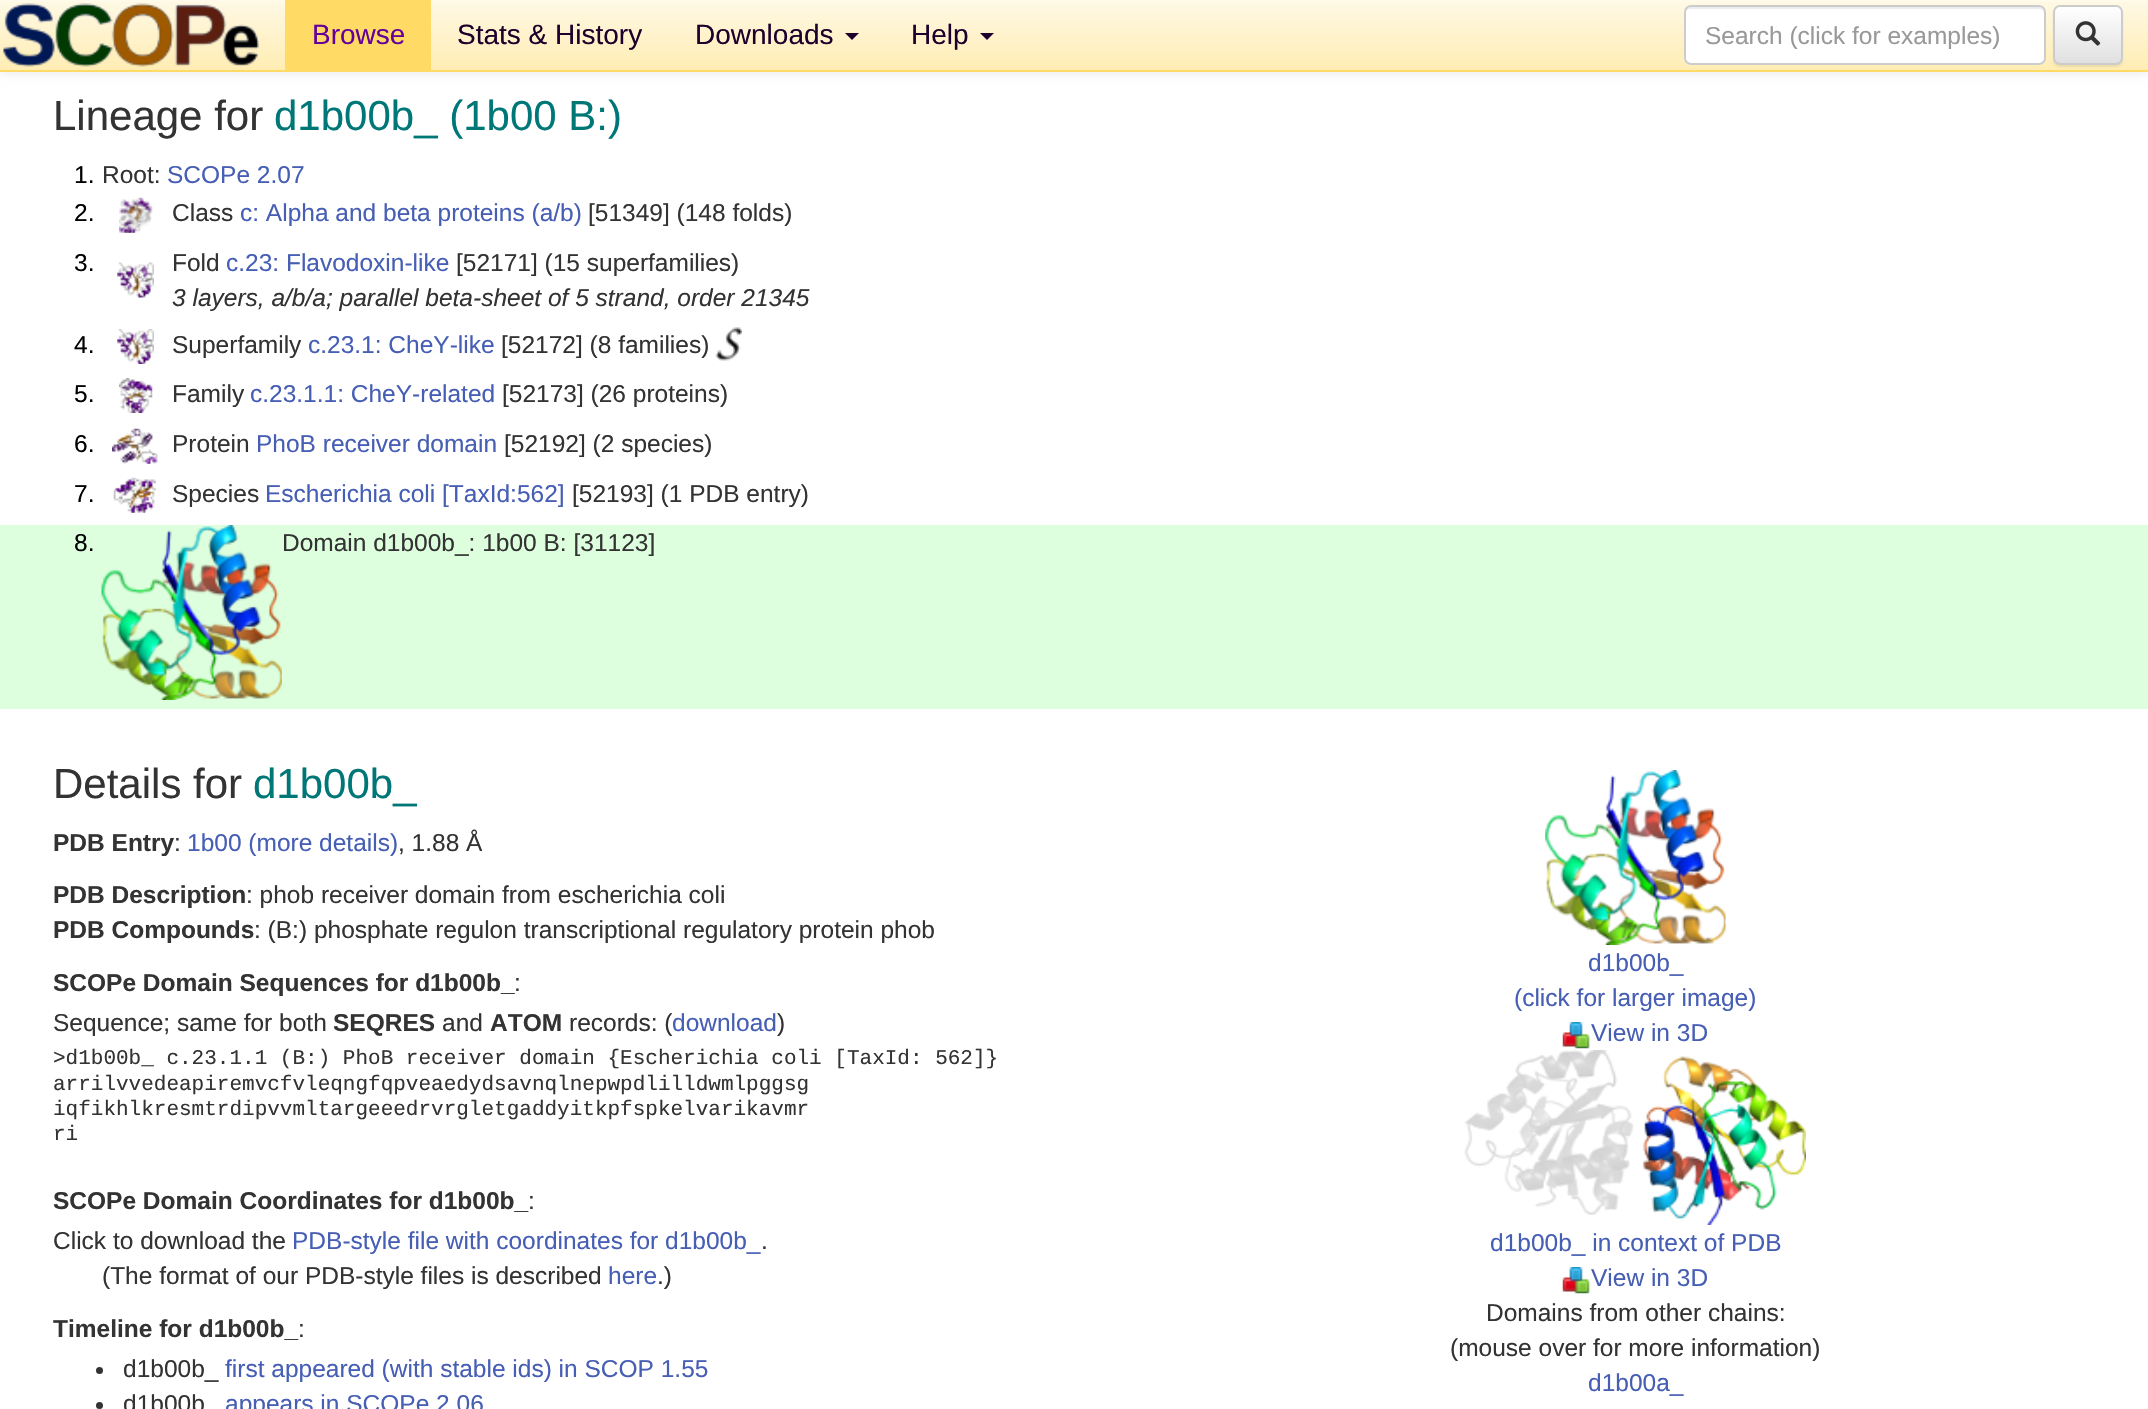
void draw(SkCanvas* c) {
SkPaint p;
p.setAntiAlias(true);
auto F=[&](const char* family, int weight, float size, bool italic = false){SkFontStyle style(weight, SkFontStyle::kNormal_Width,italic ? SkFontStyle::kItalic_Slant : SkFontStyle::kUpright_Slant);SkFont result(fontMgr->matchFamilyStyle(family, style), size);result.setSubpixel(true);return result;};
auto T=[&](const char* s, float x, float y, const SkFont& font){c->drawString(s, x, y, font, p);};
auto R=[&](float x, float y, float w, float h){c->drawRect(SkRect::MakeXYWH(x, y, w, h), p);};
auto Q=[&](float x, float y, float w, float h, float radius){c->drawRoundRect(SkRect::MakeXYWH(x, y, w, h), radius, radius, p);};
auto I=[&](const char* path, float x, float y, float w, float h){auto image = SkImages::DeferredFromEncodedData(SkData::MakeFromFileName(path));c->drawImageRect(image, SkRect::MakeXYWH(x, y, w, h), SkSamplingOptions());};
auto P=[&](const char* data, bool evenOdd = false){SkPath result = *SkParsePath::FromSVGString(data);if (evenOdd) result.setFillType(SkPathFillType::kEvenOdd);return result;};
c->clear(0xffffffff);
p.setColor(0x12000000);
p.setMaskFilter(SkMaskFilter::MakeBlur(kNormal_SkBlurStyle, 4.5));
c->drawRect(SkRect::MakeXYWH(0,2,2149,72),p);
p.setMaskFilter(nullptr);
{
const SkColor colors[] = {0xfffff9e6,0xffffedb3};
const float stops[] = {0,1};
const SkPoint ends[] = {{1075,0}, {1075,70}};
p.setShader(SkGradientShader::MakeLinear(ends, colors, stops, 2, SkTileMode::kClamp));
p.setAlpha(255);
}
R(0,2,2148,68);
p.setShader(nullptr);
p.setColor(0xfffffae9);
R(0,0,2148,2);
p.setColor(0xffffda65);
R(0,70,2148,2);
I("1.png",3,3,256,64);
R(285,0,146,70);
auto f1 = F("Liberation Sans",400,28);
p.setColor(0xff660099);
T("Browse",312,44,f1);
p.setColor(0xff1d002b);
T("Stats & History",457,44,f1);
T("Downloads",695,44,f1);
c->drawPath(P("M845 33h14l-7 7z"),p);
T("Help",911,44,f1);
c->drawPath(P("M980 33h14l-7 7z"),p);
p.setColor(0xffffffff);
Q(1684,5,362,60,7);
p.setColor(0xffececec);
c->drawPath(P("M1690 9h349c3 0 5 2 5 5c0-3-1-7-5-7h-349c-4 0-5 4-5 7c0-3 3-5 5-5z"),p);
p.setStroke(true);
p.setStrokeWidth(2);
p.setColor(0xffcccccc);
c->drawRoundRect(SkRect::MakeXYWH(1685,6,360,58),6,6,p);
c->save();
c->clipRect(SkRect::MakeXYWH(1706,21,317,28));
auto f2 = F("Liberation Sans",400,24.5);
p.setStroke(false);
p.setColor(0xff999999);
T("Search (click for examples)",1705,44,f2);
c->restore();
p.setColor(0x12000000);
p.setMaskFilter(SkMaskFilter::MakeBlur(kNormal_SkBlurStyle, 1));
c->drawRoundRect(SkRect::MakeXYWH(2053,7,70,60),7,7,p);
p.setMaskFilter(nullptr);
c->save();
c->clipPath(P("M2060 5h56c4 0 7 3 7 7v46c0 4-3 7-7 7h-56c-4 0-7-3-7-7v-46c0-4 3-7 7-7z"),true);
{
const SkColor colors[] = {0xffffffff,0xffe0e0e0};
const float stops[] = {0,1};
const SkPoint ends[] = {{2088,7}, {2088,63}};
p.setShader(SkGradientShader::MakeLinear(ends, colors, stops, 2, SkTileMode::kClamp));
p.setAlpha(255);
}
R(2053,7,70,56);
c->restore();
p.setStroke(true);
p.setShader(nullptr);
p.setColor(0xffcccccc);
c->drawRoundRect(SkRect::MakeXYWH(2054,6,68,58),6,6,p);
I("2.png",2075,21,26,25);
auto f3 = F("Liberation Sans",400,42);
p.setStroke(false);
p.setColor(0xff333333);
T("Lineage for",53,130,f3);
p.setColor(0xff007777);
T("d1b00b_ (1b00 B:)",274,130,f3);
p.setColor(0xff000000);
T("1.",74,183,f2);
p.setColor(0xff333333);
T("Root:",102,183,f2);
p.setColor(0xff465eb4);
T("SCOPe 2.07",167,183,f2);
p.setColor(0xff000000);
T("2.",74,221,f2);
I("3.png",119,197,34,36);
p.setColor(0xff333333);
T("Class",172,221,f2);
p.setColor(0xff465eb4);
T("c: Alpha and beta proteins (a/b)",240,221,f2);
p.setColor(0xff333333);
T("[51349] (148 folds)",588,221,f2);
p.setColor(0xff000000);
T("3.",74,271,f2);
I("4.png",117,262,37,36);
p.setColor(0xff333333);
T("Fold",172,271,f2);
p.setColor(0xff465eb4);
T("c.23: Flavodoxin-like",226,271,f2);
p.setColor(0xff333333);
T("[52171] (15 superfamilies)",456,271,f2);
auto f4 = F("Liberation Sans",400,24.5,true);
T("3 layers, a/b/a; parallel beta-sheet of 5 strand, order 21345",172,306,f4);
p.setColor(0xff000000);
T("4.",74,353,f2);
I("5.png",117,329,37,35);
p.setColor(0xff333333);
T("Superfamily",172,353,f2);
p.setColor(0xff465eb4);
T("c.23.1: CheY-like",308,353,f2);
p.setColor(0xff333333);
T("[52172] (8 families)",501,353,f2);
I("6.png",715,327,27,34);
p.setColor(0xff000000);
T("5.",74,402,f2);
I("7.png",119,378,34,35);
p.setColor(0xff333333);
T("Family",172,402,f2);
p.setColor(0xff465eb4);
T("c.23.1.1: CheY-related",250,402,f2);
p.setColor(0xff333333);
T("[52173] (26 proteins)",502,402,f2);
p.setColor(0xff000000);
T("6.",74,452,f2);
I("8.png",112,428,46,36);
p.setColor(0xff333333);
T("Protein",172,452,f2);
p.setColor(0xff465eb4);
T("PhoB receiver domain",256,452,f2);
p.setColor(0xff333333);
T("[52192] (2 species)",504,452,f2);
p.setColor(0xff000000);
T("7.",74,502,f2);
I("9.png",113,477,43,36);
p.setColor(0xff333333);
T("Species",172,502,f2);
p.setColor(0xff465eb4);
T("Escherichia coli [TaxId:562]",265,502,f2);
p.setColor(0xff333333);
T("[52193] (1 PDB entry)",572,502,f2);
p.setColor(0xffddffdd);
R(0,525,2148,184);
p.setColor(0xff000000);
T("8.",74,551,f2);
I("10.png",101,525,181,175);
p.setColor(0xff333333);
T("Domain d1b00b_: 1b00 B: [31123]",282,551,f2);
T("Details for",53,798,f3);
p.setColor(0xff007777);
T("d1b00b_",253,798,f3);
auto f5 = F("Liberation Sans",700,24.5);
p.setColor(0xff333333);
T("PDB Entry",53,851,f5);
T(":",174,851,f2);
p.setColor(0xff465eb4);
T("1b00 (more details)",187,851,f2);
p.setColor(0xff333333);
T(", 1.88 Å",398,851,f2);
T("PDB Description",53,903,f5);
T(": phob receiver domain from escherichia coli",246,903,f2);
T("PDB Compounds",53,938,f5);
T(": (B:) phosphate regulon transcriptional regulatory protein phob",254,938,f2);
T("SCOPe Domain Sequences for d1b00b_",53,991,f5);
T(":",514,991,f2);
T("Sequence; same for both",53,1031,f2);
T("SEQRES",333,1031,f5);
T("and",442,1031,f2);
T("ATOM",490,1031,f5);
T("records: (",569,1031,f2);
p.setColor(0xff465eb4);
T("download",672,1031,f2);
p.setColor(0xff333333);
T(")",777,1031,f2);
auto f6 = F("Liberation Mono",400,21);
T(">d1b00b_ c.23.1.1 (B:) PhoB receiver domain {Escherichia coli [TaxId: 562]}",53,1064,f6);
T("arrilvvedeapiremvcfvleqngfqpveaedydsavnqlnepwpdlilldwmlpggsg",53,1090,f6);
T("iqfikhlkresmtrdipvvmltargeeedrvrgletgaddyitkpfspkelvarikavmr",53,1115,f6);
T("ri",53,1140,f6);
T("SCOPe Domain Coordinates for d1b00b_",53,1209,f5);
T(":",528,1209,f2);
T("Click to download the",53,1249,f2);
p.setColor(0xff465eb4);
T("PDB-style file with coordinates for d1b00b_",292,1249,f2);
p.setColor(0xff333333);
T(".",761,1249,f2);
T("(The format of our PDB-style files is described",102,1284,f2);
p.setColor(0xff465eb4);
T("here",608,1284,f2);
p.setColor(0xff333333);
T(".)",657,1284,f2);
T("Timeline for d1b00b_",53,1337,f5);
T(":",298,1337,f2);
c->drawCircle(99.5,1370.5,3.5,p);
T("d1b00b_",123,1377,f2);
p.setColor(0xff465eb4);
T("first appeared (with stable ids) in SCOP 1.55",225,1377,f2);
p.setColor(0xff333333);
c->drawCircle(99.5,1405.5,3.5,p);
T("d1b00b",123,1412,f2);
p.setColor(0xff465eb4);
T("appears in SCOPe 2.06",225,1412,f2);
I("11.png",1545,770,181,175);
T("d1b00b_",1588,971,f2);
T("(click for larger image)",1514,1006,f2);
I("12.png",1562,1022,28,27);
T("View in 3D",1591,1041,f2);
I("13.png",1464,1050,342,175);
T("d1b00b_ in context of PDB",1490,1251,f2);
I("12.png",1562,1267,28,27);
T("View in 3D",1591,1286,f2);
p.setColor(0xff333333);
T("Domains from other chains:",1486,1321,f2);
T("(mouse over for more information)",1450,1356,f2);
p.setColor(0xff465eb4);
T("d1b00a_",1588,1391,f2);
}
